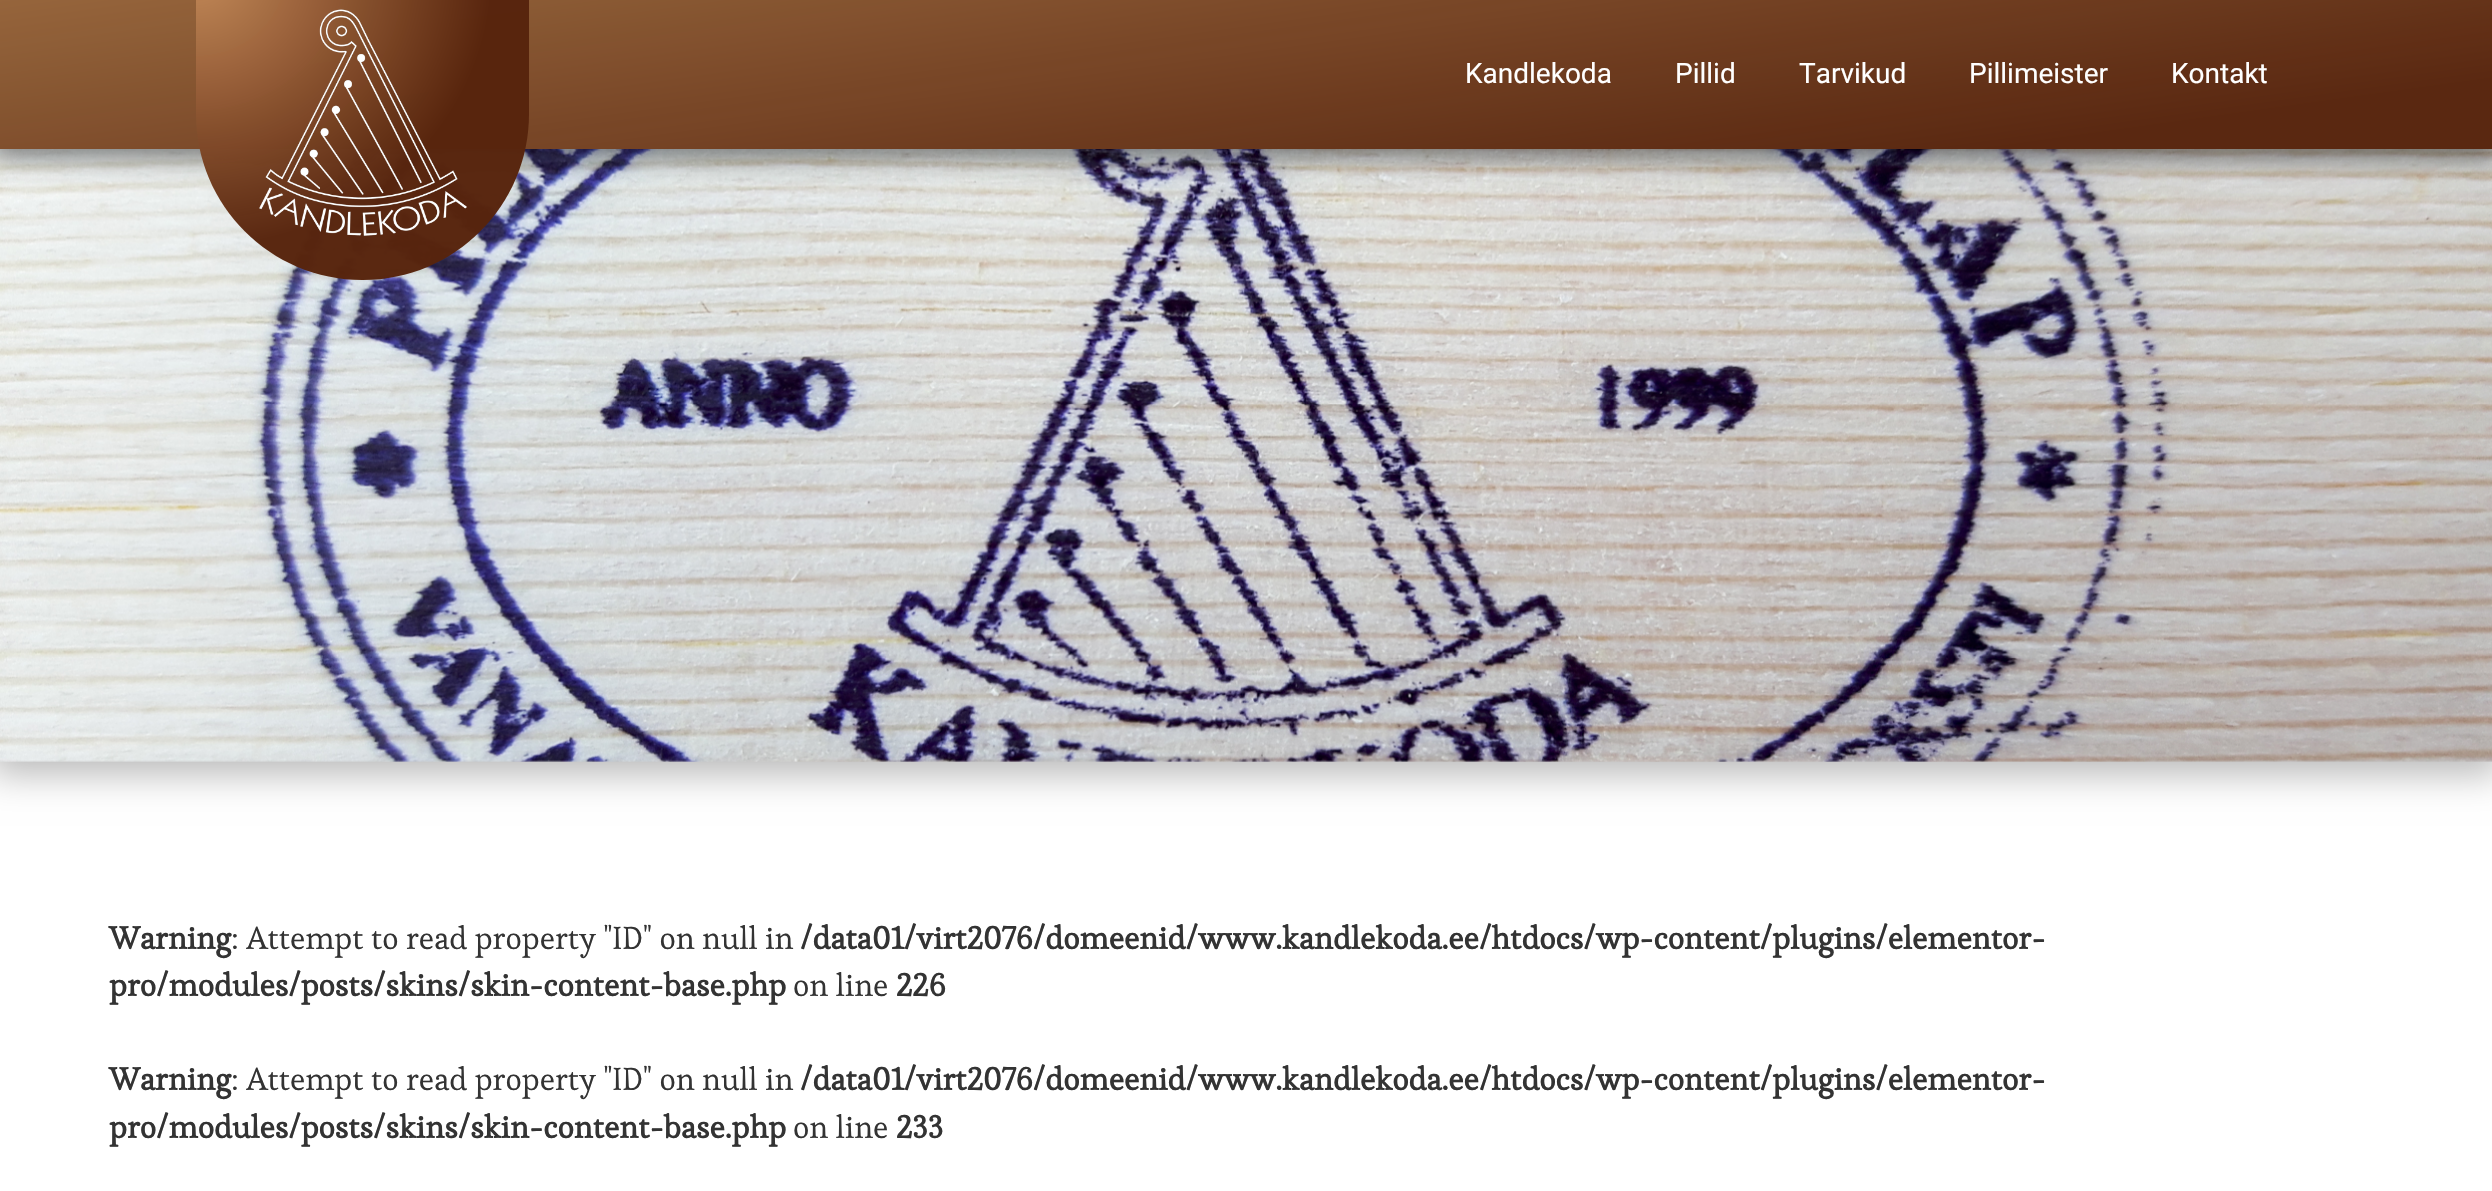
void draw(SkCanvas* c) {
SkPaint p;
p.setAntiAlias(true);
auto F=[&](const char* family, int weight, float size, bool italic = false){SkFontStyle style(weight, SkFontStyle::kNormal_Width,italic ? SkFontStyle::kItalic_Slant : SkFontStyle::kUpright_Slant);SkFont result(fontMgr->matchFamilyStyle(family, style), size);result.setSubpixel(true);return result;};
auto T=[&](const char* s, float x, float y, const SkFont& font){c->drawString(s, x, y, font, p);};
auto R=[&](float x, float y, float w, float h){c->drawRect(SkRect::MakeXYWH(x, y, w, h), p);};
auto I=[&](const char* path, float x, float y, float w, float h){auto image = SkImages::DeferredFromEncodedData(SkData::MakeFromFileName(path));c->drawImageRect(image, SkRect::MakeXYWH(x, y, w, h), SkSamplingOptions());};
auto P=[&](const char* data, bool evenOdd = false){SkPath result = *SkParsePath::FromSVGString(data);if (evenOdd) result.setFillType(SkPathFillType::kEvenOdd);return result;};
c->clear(0xffffffff);
p.setColor(0x47000000);
p.setMaskFilter(SkMaskFilter::MakeBlur(kNormal_SkBlurStyle, 17.5));
c->drawRect(SkRect::MakeXYWH(-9,144,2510,630),p);
p.setMaskFilter(nullptr);
I("2.png",0,149,2492,613);
c->save();
c->clipPath(P("M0 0h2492v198h-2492zm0 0h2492v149h-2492z",true),true);
p.setColor(0x80000000);
p.setMaskFilter(SkMaskFilter::MakeBlur(kNormal_SkBlurStyle, 13));
c->drawRect(SkRect::MakeXYWH(-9,-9,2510,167),p);
p.setMaskFilter(nullptr);
c->restore();
{
const SkColor colors[] = {0xfa57240c,0xff96653c};
const float stops[] = {.14,1};
const SkPoint ends[] = {{1280,319}, {1212,-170}};
p.setShader(SkGradientShader::MakeLinear(ends, colors, stops, 2, SkTileMode::kClamp));
p.setAlpha(255);
}
R(0,0,2492,149);
{
const SkColor colors[] = {0xffc38857,0xfa57240c};
const float stops[] = {0,.63};
SkMatrix m = SkMatrix::Translate(196,-26).preScale(470,433);
p.setShader(SkGradientShader::MakeRadial({0, 0}, 1, colors, stops, 2, SkTileMode::kClamp, 0, &m));
p.setAlpha(255);
}
c->drawPath(P("M196-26h333v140c0 91.5-74.5 166-166 166h-1c-91.5 0-166-74.5-166-166z"),p);
I("1.png",259,9,208,227);
auto f1 = F("Roboto",400,28);
p.setShader(nullptr);
p.setColor(0xffffffff);
T("Kandlekoda",1465,83,f1);
T("Pillid",1675,83,f1);
T("Tarvikud",1799,83,f1);
T("Pillimeister",1969,83,f1);
T("Kontakt",2171,83,f1);
auto f2 = F("Esteban",700,31.5);
p.setColor(0xff333333);
T("Warning",109,949,f2);
auto f3 = F("Esteban",400,31.5);
T(": Attempt to read property \"ID\" on null in",231,949,f3);
T("/data01/virt2076/domeenid/www.kandlekoda.ee/htdocs/wp-content/plugins/elementor-",800,949,f2);
T("pro/modules/posts/skins/skin-content-base.php",109,996,f2);
T("on line",793,996,f3);
T("226",896,996,f2);
T("Warning",109,1090,f2);
T(": Attempt to read property \"ID\" on null in",231,1090,f3);
T("/data01/virt2076/domeenid/www.kandlekoda.ee/htdocs/wp-content/plugins/elementor-",800,1090,f2);
T("pro/modules/posts/skins/skin-content-base.php",109,1138,f2);
T("on line",793,1138,f3);
T("233",896,1138,f2);
}
